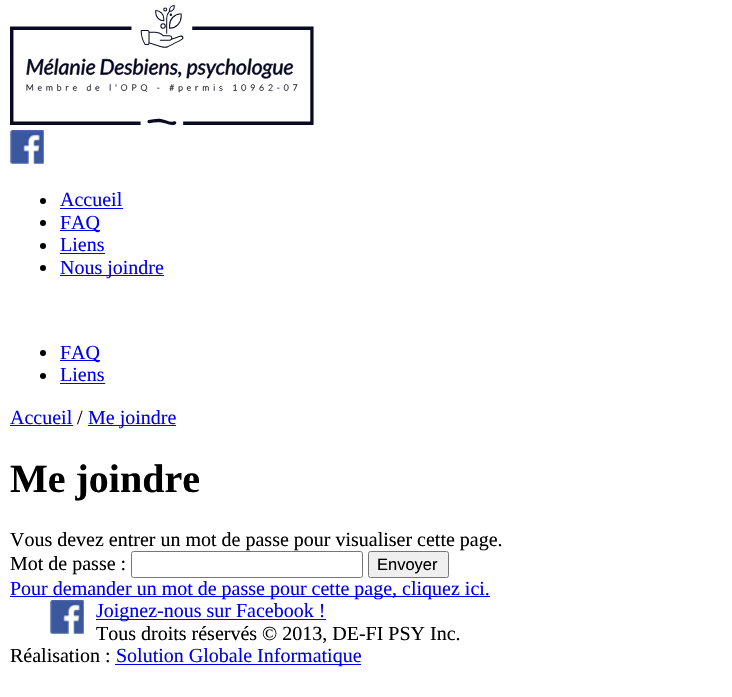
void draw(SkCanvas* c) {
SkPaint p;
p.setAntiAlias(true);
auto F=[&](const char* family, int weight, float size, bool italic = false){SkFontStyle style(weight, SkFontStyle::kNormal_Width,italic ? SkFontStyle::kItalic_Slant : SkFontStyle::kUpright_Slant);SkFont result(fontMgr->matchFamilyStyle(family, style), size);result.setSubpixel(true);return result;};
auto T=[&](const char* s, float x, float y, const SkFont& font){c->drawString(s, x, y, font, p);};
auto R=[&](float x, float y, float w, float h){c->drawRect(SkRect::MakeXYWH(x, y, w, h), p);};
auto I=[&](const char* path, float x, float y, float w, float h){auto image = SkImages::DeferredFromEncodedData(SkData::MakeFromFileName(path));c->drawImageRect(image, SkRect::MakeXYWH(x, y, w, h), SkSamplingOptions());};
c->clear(0xffffffff);
I("1.png",10,5,304,120);
I("2.png",10,130,34,34);
p.setColor(0xff000000);
c->drawCircle(43,201,3,p);
auto f1 = F("Liberation Serif",400,20);
p.setColor(0xff0000ee);
T("Accueil",60,206,f1);
R(60,208,63,1);
p.setColor(0xff000000);
c->drawCircle(43,223,3,p);
p.setColor(0xff0000ee);
R(60,230,40,1);
T("FAQ",60,229,f1);
p.setColor(0xff000000);
c->drawCircle(43,246,3,p);
p.setColor(0xff0000ee);
T("Liens",60,251,f1);
R(60,253,45,1);
p.setColor(0xff000000);
c->drawCircle(43,268,3,p);
p.setColor(0xff0000ee);
R(60,275,104,1);
T("Nous joindre",60,274,f1);
p.setColor(0xff000000);
c->drawCircle(43,353,3,p);
p.setColor(0xff0000ee);
R(60,360,40,1);
T("FAQ",60,359,f1);
p.setColor(0xff000000);
c->drawCircle(43,376,3,p);
p.setColor(0xff0000ee);
T("Liens",60,381,f1);
R(60,383,45,1);
T("Accueil",10,424,f1);
R(10,425,63,1);
p.setColor(0xff000000);
T("/",77,424,f1);
p.setColor(0xff0000ee);
R(88,425,88,1);
T("Me joindre",88,424,f1);
auto f2 = F("Liberation Serif",700,40);
p.setColor(0xff000000);
T("Me joindre",10,492,f2);
T("Vous devez entrer un mot de passe pour visualiser cette page.",10,546,f1);
T("Mot de passe :",10,570,f1);
p.setStroke(true);
p.setStrokeWidth(1);
p.setColor(0xff767676);
c->drawRoundRect(SkRect::MakeXYWH(131.5,551.5,231,26),2,2,p);
p.setStroke(false);
p.setColor(0xffefefef);
c->drawRoundRect(SkRect::MakeXYWH(368.5,551.5,80,26),2,2,p);
p.setStroke(true);
p.setColor(0xff767676);
c->drawRoundRect(SkRect::MakeXYWH(368.5,551.5,80,26),2,2,p);
auto f3 = F("Liberation Sans",400,16.5);
p.setStroke(false);
p.setColor(0xff000000);
T("Envoyer",377,570,f3);
p.setColor(0xff0000ee);
R(10,596,480,1);
T("Pour demander un mot de passe pour cette page, cliquez ici.",10,595,f1);
I("2.png",50,600,34,34);
R(96,619,230,1);
T("Joignez-nous sur Facebook !",96,617,f1);
p.setColor(0xff000000);
T("Tous droits réservés © 2013, DE-FI PSY Inc.",96,640,f1);
T("Réalisation :",10,662,f1);
p.setColor(0xff0000ee);
R(115,664,246,1);
T("Solution Globale Informatique",116,662,f1);
}
